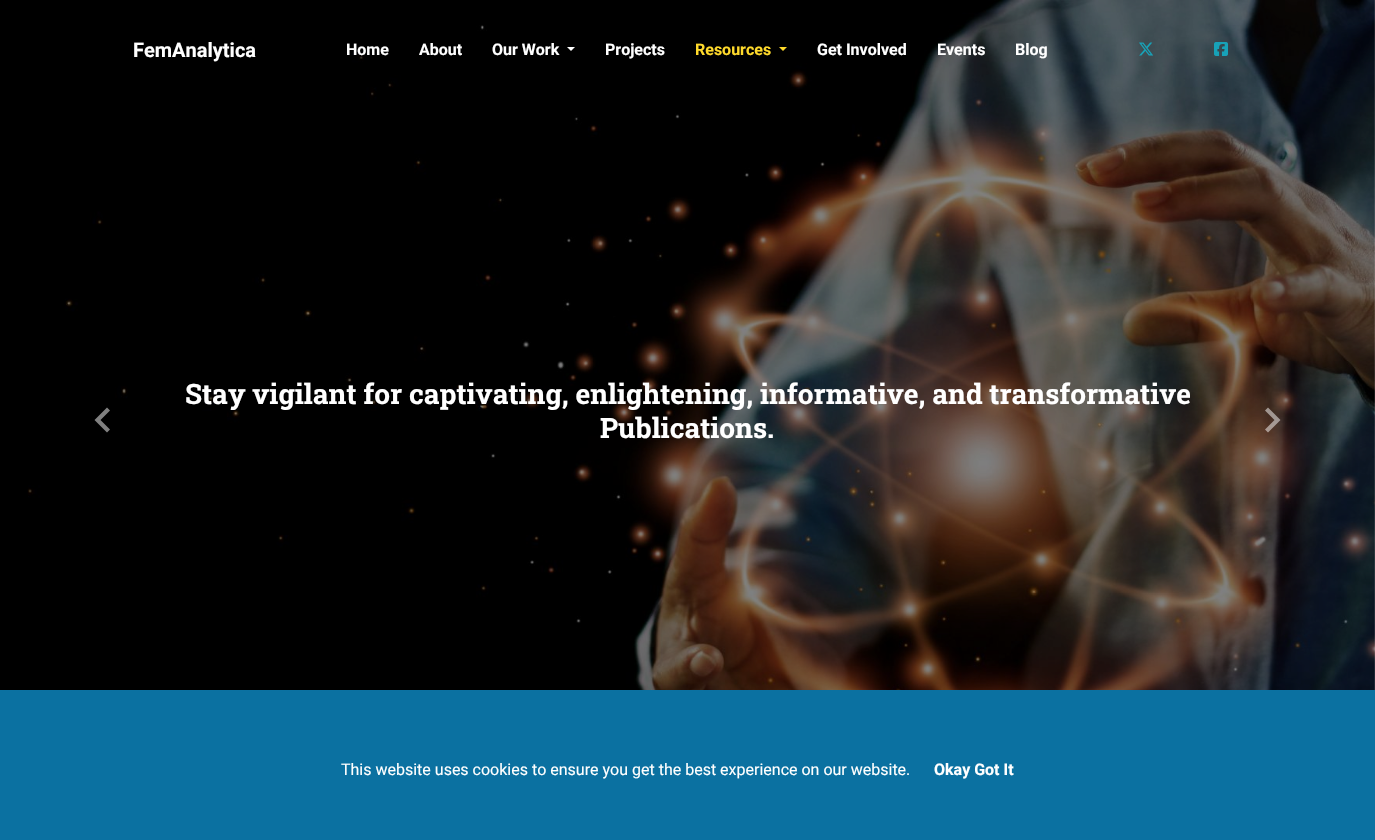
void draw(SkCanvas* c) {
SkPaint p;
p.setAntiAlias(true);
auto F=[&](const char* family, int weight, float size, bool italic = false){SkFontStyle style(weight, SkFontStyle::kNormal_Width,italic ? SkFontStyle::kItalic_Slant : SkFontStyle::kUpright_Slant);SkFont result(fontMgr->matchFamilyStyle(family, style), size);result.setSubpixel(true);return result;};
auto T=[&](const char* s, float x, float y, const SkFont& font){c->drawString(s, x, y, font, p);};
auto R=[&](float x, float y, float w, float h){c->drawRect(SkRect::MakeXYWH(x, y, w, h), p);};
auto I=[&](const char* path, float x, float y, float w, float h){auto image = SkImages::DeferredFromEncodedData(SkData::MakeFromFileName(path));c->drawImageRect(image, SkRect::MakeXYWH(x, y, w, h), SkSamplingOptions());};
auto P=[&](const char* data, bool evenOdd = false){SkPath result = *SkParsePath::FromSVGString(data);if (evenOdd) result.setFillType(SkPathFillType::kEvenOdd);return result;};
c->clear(0xffffffff);
I("3.png",0,0,1375,690);
auto f1 = F("Roboto",700,20);
p.setColor(0xffffffff);
T("FemAnalytica",133,57,f1);
auto f2 = F("Roboto",700,16);
T("Home",346,55,f2);
T("About",419,55,f2);
T("Our Work",492,55,f2);
c->drawPath(P("M567 47h8l-4 4z"),p);
T("Projects",605,55,f2);
p.setColor(0xffffda2b);
T("Resources",695,55,f2);
c->drawPath(P("M779 47h8l-4 4z"),p);
p.setColor(0xffffffff);
T("Get Involved",817,55,f2);
T("Events",937,55,f2);
T("Blog",1015,55,f2);
I("1.png",1139,42,14,14);
I("2.png",1214,42,14,14);
p.setColor(0xff808080);
c->drawPath(P("M110 429.5l-3 3l-12.5-12.5l12.5-12.5l3 3l-9.5 9.5z"),p);
auto f3 = F("Roboto Slab",700,28);
p.setColor(0xffffffff);
T("Stay vigilant for captivating, enlightening, informative, and transformative",185,404,f3);
T("Publications.",600,438,f3);
p.setColor(0x80ffffff);
c->drawPath(P("M1265 429.5l9.5-9.5l-9.5-9.5l3-3l12.5 12.5l-12.5 12.5z"),p);
p.setColor(0xff0b71a1);
R(0,690,1375,150);
auto f4 = F("Roboto",400,16);
p.setColor(0xffffffff);
T("This website uses cookies to ensure you get the best experience on our website.",341,775,f4);
T("Okay Got It",934,775,f2);
}
